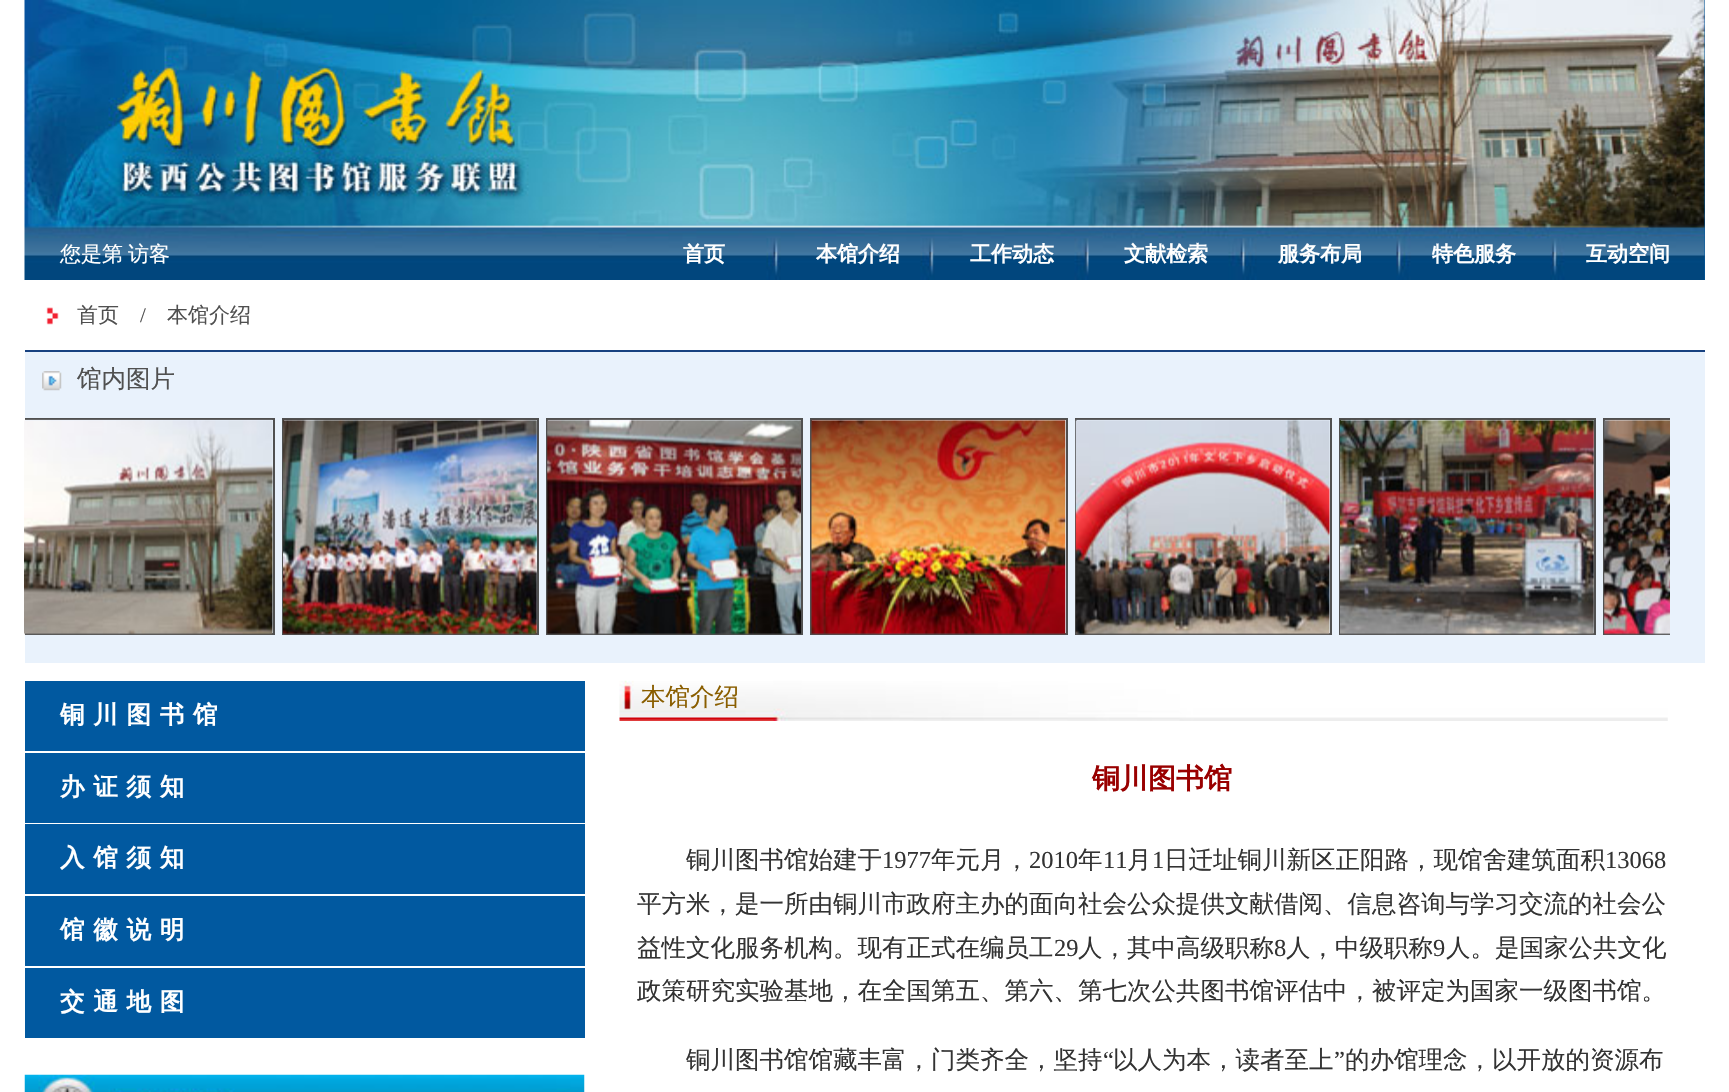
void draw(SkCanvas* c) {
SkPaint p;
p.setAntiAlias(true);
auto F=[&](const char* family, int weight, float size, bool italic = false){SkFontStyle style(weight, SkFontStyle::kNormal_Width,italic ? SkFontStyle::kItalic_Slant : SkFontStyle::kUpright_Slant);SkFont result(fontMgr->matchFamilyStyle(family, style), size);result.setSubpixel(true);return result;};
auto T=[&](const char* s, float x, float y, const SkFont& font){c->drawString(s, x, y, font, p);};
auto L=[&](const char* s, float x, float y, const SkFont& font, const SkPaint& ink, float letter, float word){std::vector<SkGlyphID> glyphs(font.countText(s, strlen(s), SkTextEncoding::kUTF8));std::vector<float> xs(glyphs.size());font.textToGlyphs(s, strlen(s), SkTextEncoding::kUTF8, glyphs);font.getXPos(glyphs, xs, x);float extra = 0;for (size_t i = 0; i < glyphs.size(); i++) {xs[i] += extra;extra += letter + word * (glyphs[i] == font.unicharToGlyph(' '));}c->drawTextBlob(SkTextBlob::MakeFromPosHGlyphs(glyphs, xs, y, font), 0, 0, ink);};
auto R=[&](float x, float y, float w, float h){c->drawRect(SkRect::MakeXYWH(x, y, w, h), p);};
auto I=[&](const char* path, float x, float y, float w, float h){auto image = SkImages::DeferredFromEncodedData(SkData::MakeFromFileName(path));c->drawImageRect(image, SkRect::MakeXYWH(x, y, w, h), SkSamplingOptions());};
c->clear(0xffffffff);
p.setColor(0xff0159a0);
R(1704,0,1,280);
I("1.png",24,0,1681,280);
auto f1 = F("WenQuanYi Zen Hei",500,21);
p.setColor(0xffffffff);
T("您是第",60,261,f1);
T("访客",128,261,f1);
auto f2 = F("WenQuanYi Zen Hei",700,21);
T("首页",683,261,f2);
T("本馆介绍",816,261,f2);
T("工作动态",970,261,f2);
T("文献检索",1124,261,f2);
T("服务布局",1278,261,f2);
T("特色服务",1432,261,f2);
T("互动空间",1586,261,f2);
I("2.png",46,307,13,18);
p.setColor(0xff505050);
T("首页",77,322,f1);
auto f3 = F("Liberation Serif",400,21);
T("/",140,322,f3);
T("本馆介绍",167,322,f1);
p.setColor(0xffe9f2fc);
R(25,352,1680,311);
p.setColor(0xff174180);
R(25,350,1680,2);
I("3.png",42,371,20,20);
auto f4 = F("WenQuanYi Zen Hei",500,24.5);
p.setColor(0xff505050);
T("馆内图片",77,387,f4);
c->save();
c->clipRect(SkRect::MakeXYWH(25,408,1645,238));
p.setStroke(true);
p.setStrokeWidth(2);
c->drawRect(SkRect::MakeXYWH(19,419,255,215),p);
c->restore();
I("4.png",24,419,249,216);
c->drawRect(SkRect::MakeXYWH(283,419,255,215),p);
I("5.png",283,419,254,216);
c->drawRect(SkRect::MakeXYWH(547,419,255,215),p);
I("6.png",547,419,254,216);
c->drawRect(SkRect::MakeXYWH(811,419,256,215),p);
I("7.png",811,419,255,216);
c->drawRect(SkRect::MakeXYWH(1076,419,255,215),p);
I("8.png",1075,419,255,216);
c->drawRect(SkRect::MakeXYWH(1340,419,255,215),p);
I("9.png",1340,419,254,216);
c->save();
c->clipRect(SkRect::MakeXYWH(25,408,1645,238));
c->drawRect(SkRect::MakeXYWH(1604,419,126,215),p);
c->restore();
I("10.png",1604,419,66,216);
p.setStroke(false);
p.setColor(0xff0159a0);
R(25,681,560,70);
auto f5 = F("WenQuanYi Zen Hei",700,24.5);
p.setColor(0xffffffff);
L("铜川图书馆",60,723,f5,p,8.75,0);
p.setColor(0xff0159a0);
R(25,753,560,70);
p.setColor(0xffffffff);
L("办证须知",60,795,f5,p,8.75,0);
p.setColor(0xff0159a0);
R(25,824,560,70);
p.setColor(0xffffffff);
L("入馆须知",60,866,f5,p,8.75,0);
p.setColor(0xff0159a0);
R(25,896,560,70);
p.setColor(0xffffffff);
L("馆徽说明",60,938,f5,p,8.75,0);
p.setColor(0xff0159a0);
R(25,968,560,70);
p.setColor(0xffffffff);
L("交通地图",60,1010,f5,p,8.75,0);
I("11.png",24,1074,561,18);
I("12.png",619,680,1049,41);
p.setColor(0xff8a5e00);
T("本馆介绍",641,705,f4);
auto f6 = F("WenQuanYi Zen Hei",700,28);
p.setColor(0xff990000);
T("铜川图书馆",1092,788,f6);
p.setColor(0xff333333);
T("铜川图书馆始建于",686,868,f4);
auto f7 = F("Liberation Serif",400,24.5);
T("1977",882,868,f7);
T("年元月，",931,868,f4);
T("2010",1029,868,f7);
T("年",1078,868,f4);
T("11",1103,868,f7);
T("月",1127,868,f4);
T("1",1152,868,f7);
T("日迁址铜川新区正阳路，现馆舍建筑面积",1164,868,f4);
T("13068",1605,868,f7);
T("平方米，是一所由铜川市政府主办的面向社会公众提供文献借阅、信息咨询与学习交流的社会公",637,912,f4);
T("益性文化服务机构。现有正式在编员工",637,956,f4);
T("29",1054,956,f7);
T("人，其中高级职称",1078,956,f4);
T("8",1274,956,f7);
T("人，中级职称",1286,956,f4);
T("9",1433,956,f7);
T("人。是国家公共文化",1446,956,f4);
T("政策研究实验基地，在全国第五、第六、第七次公共图书馆评估中，被评定为国家一级图书馆。",637,999,f4);
T("铜川图书馆馆藏丰富，门类齐全，坚持",686,1068,f4);
T("“",1103,1068,f7);
T("以人为本，读者至上",1113,1068,f4);
T("”",1334,1068,f7);
T("的办馆理念，以开放的资源布",1345,1068,f4);
}
